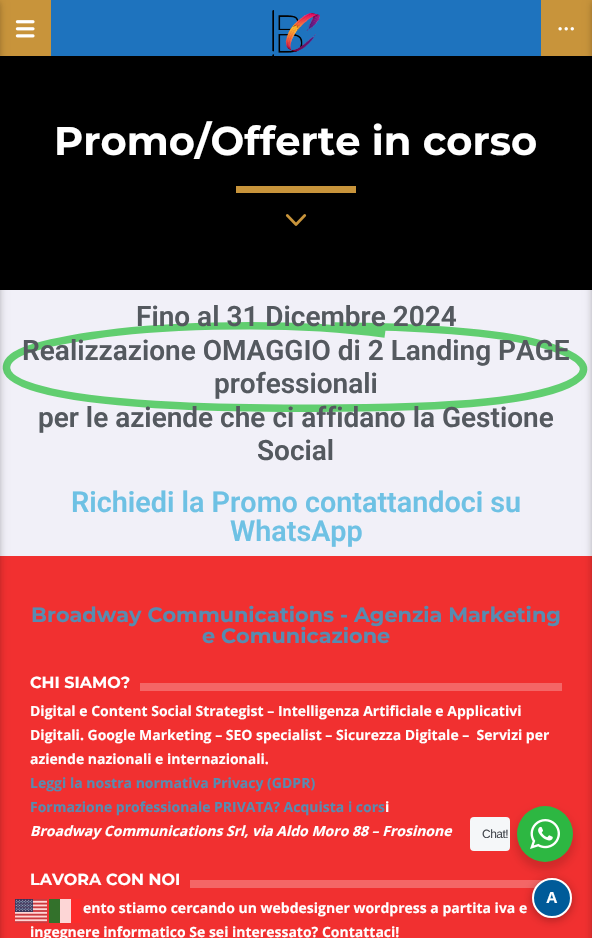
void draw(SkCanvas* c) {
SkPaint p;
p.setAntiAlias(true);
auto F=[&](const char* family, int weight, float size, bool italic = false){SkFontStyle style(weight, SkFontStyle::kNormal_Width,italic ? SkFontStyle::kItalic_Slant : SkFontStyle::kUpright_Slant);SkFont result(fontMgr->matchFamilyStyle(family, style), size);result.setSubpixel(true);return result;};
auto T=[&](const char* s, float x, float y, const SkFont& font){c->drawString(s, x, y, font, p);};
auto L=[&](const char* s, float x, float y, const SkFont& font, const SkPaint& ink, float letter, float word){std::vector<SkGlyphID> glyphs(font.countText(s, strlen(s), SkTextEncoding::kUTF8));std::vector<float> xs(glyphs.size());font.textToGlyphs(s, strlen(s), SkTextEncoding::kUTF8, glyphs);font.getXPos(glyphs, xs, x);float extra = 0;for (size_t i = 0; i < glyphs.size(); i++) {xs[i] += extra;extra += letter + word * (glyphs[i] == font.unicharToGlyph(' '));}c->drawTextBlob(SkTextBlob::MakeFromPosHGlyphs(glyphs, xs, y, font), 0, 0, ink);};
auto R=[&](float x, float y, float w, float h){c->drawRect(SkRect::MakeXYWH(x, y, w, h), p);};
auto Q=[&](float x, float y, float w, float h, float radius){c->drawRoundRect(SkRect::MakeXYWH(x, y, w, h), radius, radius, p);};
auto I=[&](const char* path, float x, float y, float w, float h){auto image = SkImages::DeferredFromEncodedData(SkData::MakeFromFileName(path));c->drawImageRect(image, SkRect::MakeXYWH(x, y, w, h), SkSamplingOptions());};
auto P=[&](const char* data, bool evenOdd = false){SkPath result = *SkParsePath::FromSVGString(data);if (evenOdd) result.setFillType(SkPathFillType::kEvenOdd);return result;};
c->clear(0xfff1f0f8);
p.setColor(0xff1e73be);
R(51,0,490,56);
p.setColor(0xffc8943b);
R(0,0,51,56);
I("1.png",15,20,20,18);
p.setColor(0xff000000);
R(0,56,592,234);
I("2.png",272,10,48,48);
p.setColor(0xffc8943b);
R(541,0,51,56);
I("3.png",558,27,16,4);
p.setStroke(true);
p.setStrokeWidth(7.5);
p.setColor(0xff61ce70);
c->drawPath(P("M385 334c-114-15.5-244.5-6-292.5 1.5c-66 10-87 19.5-86 33c2 19 62 31.5 169 37c78.5 4 251 4.5 324-5c76-9.5 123.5-33.5 40-57c-41.5-11.5-125-17-205-17.5"),p);
p.setStroke(false);
p.setColor(0xfff13030);
R(0,556,592,382);
p.setColor(0x1f000000);
p.setMaskFilter(SkMaskFilter::MakeBlur(kNormal_SkBlurStyle, 5));
c->drawRect(SkRect::MakeXYWH(-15,2,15,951),p);
p.setMaskFilter(nullptr);
p.setColor(0x29000000);
p.setMaskFilter(SkMaskFilter::MakeBlur(kNormal_SkBlurStyle, 2.5));
c->drawRect(SkRect::MakeXYWH(-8,2,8,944),p);
p.setMaskFilter(nullptr);
auto f1 = F("Montserrat",700,40);
p.setColor(0xffffffff);
T("Promo/Offerte in corso",54,155,f1);
p.setColor(0xffc8943b);
R(236,186,120,7);
I("4.png",285,214,22,12);
auto f2 = F("Roboto",600,28);
p.setColor(0xff54595f);
T("Fino al 31 Dicembre 2024",136,326,f2);
T("Realizzazione OMAGGIO di 2 Landing PAGE",22,360,f2);
T("professionali",214,393,f2);
T("per le aziende che ci affidano la Gestione",38,427,f2);
T("Social",257,460,f2);
auto f3 = F("Roboto",600,28.75);
p.setColor(0xff6ec1e4);
T("Richiedi la Promo contattandoci su",71,512,f3);
T("WhatsApp",230,541,f3);
auto f4 = F("Montserrat",700,20.8);
p.setColor(0xff578cb1);
T("Broadway Communications - Agenzia Marketing",31,622,f4);
T("e Comunicazione",202,643,f4);
auto f5 = F("Montserrat",700,16);
p.setColor(0xffffffff);
T("CHI SIAMO?",30,688,f5);
p.setColor(0xfff46666);
R(140,683,422,8);
auto f6 = F("Open Sans",700,14);
p.setColor(0xffffffff);
T("Digital e Content Social Strategist – Intelligenza Artificiale e Applicativi",30,716,f6);
T("Digitali. Google Marketing – SEO specialist – Sicurezza Digitale –  Servizi per",30,740,f6);
T("aziende nazionali e internazionali.",30,764,f6);
p.setColor(0xff578cb1);
T("Leggi la nostra normativa Privacy (GDPR)",30,788,f6);
T("Formazione professionale PRIVATA? Acquista i cors",30,812,f6);
p.setColor(0xffffffff);
T("i",385,812,f6);
auto f7 = F("Open Sans",700,14,true);
T("Broadway Communications Srl, via Aldo Moro 88 – Frosinone",30,836,f7);
T("LAVORA CON NOI",30,885,f5);
p.setColor(0xfff46666);
R(190,880,372,8);
p.setColor(0xffffffff);
T("ento stiamo cercando un webdesigner wordpress a partita iva e",83,913,f6);
T("ingegnere informatico Se sei interessato? Contattaci!",30,937,f6);
p.setColor(0x1f000000);
p.setMaskFilter(SkMaskFilter::MakeBlur(kNormal_SkBlurStyle, 5));
c->drawRect(SkRect::MakeXYWH(592,2,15,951),p);
p.setMaskFilter(nullptr);
p.setColor(0x29000000);
p.setMaskFilter(SkMaskFilter::MakeBlur(kNormal_SkBlurStyle, 2.5));
c->drawRect(SkRect::MakeXYWH(592,2,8,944),p);
p.setMaskFilter(nullptr);
p.setColor(0x24000000);
p.setMaskFilter(SkMaskFilter::MakeBlur(kNormal_SkBlurStyle, 4));
c->drawRoundRect(SkRect::MakeXYWH(515,810,60,60),30,30,p);
p.setMaskFilter(nullptr);
p.setColor(0xfff5f7f9);
Q(470,817,40,34,4);
auto f8 = F("Liberation Sans",400,12);
p.setColor(0xff43474e);
L("Chat!",482,838,f8,p,-.5,0);
p.setColor(0xff2db742);
c->drawCircle(545,834,28,p);
I("5.png",530,819,30,30);
p.setColor(0x4d000000);
p.setMaskFilter(SkMaskFilter::MakeBlur(kNormal_SkBlurStyle, 5));
c->drawRoundRect(SkRect::MakeXYWH(532,880,40,40),20,20,p);
p.setMaskFilter(nullptr);
p.setColor(0xff005b99);
c->drawCircle(552,898,19,p);
p.setStroke(true);
p.setStrokeWidth(2);
p.setColor(0xffffffff);
c->drawCircle(552,898,19,p);
auto f9 = F("Liberation Sans",700,16);
p.setStroke(false);
T("A",546,903,f9);
I("6.png",15,899,32,24);
p.setColor(0xccffffff);
R(49,899,32,24);
p.setColor(0xcc005700);
R(49,899,11,24);
p.setColor(0xccfc0000);
R(71,899,10,24);
}
